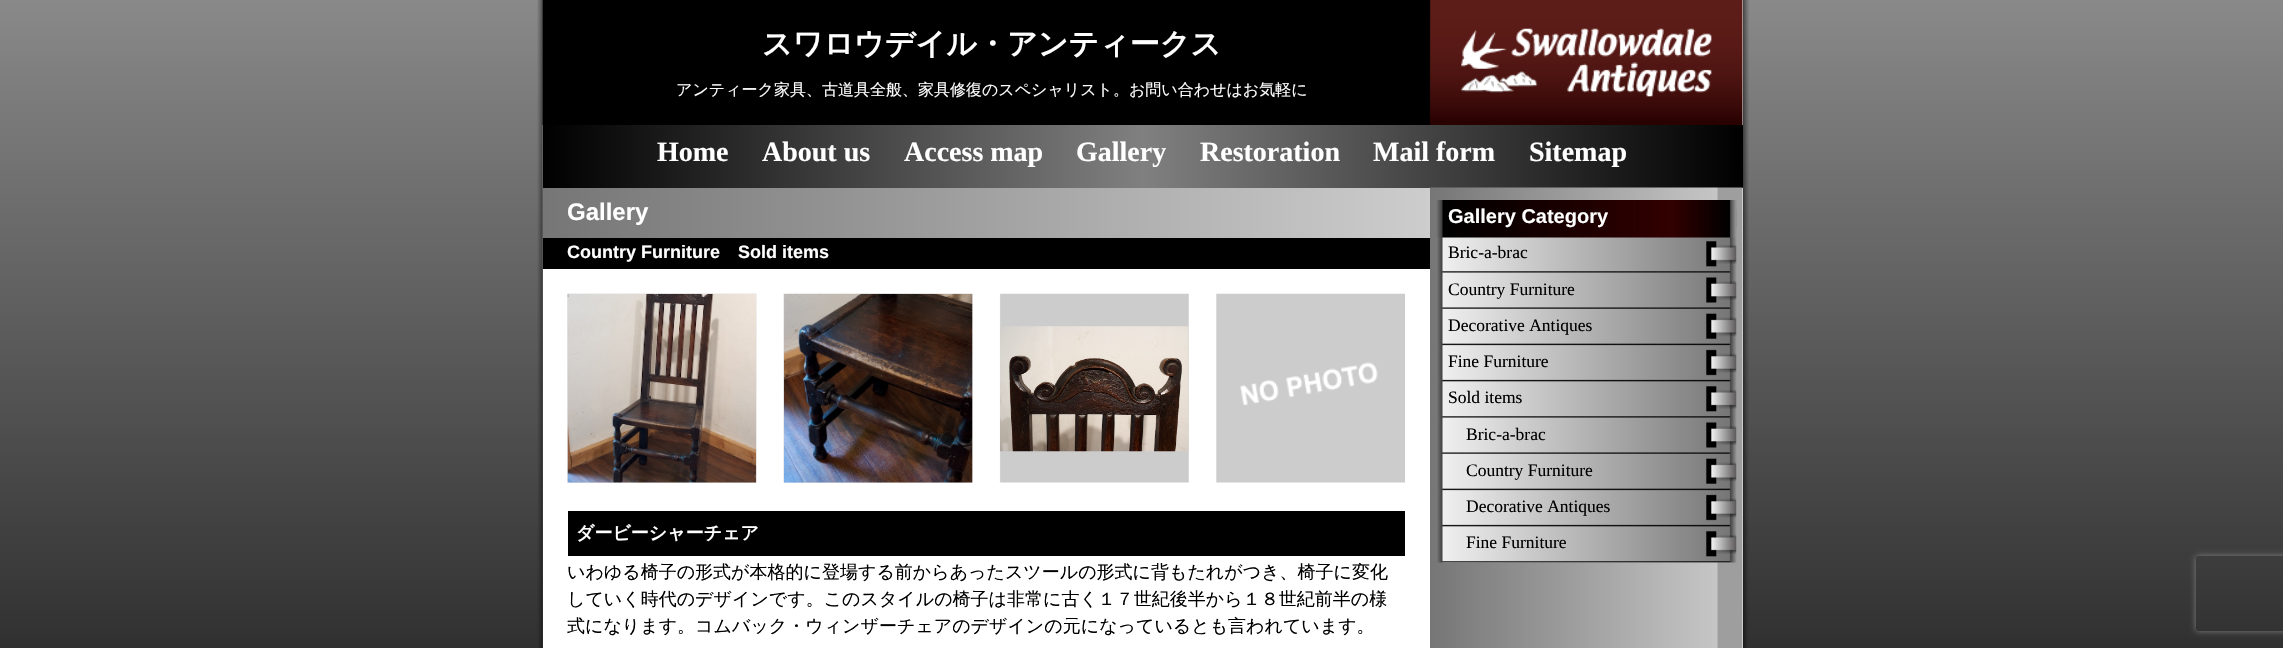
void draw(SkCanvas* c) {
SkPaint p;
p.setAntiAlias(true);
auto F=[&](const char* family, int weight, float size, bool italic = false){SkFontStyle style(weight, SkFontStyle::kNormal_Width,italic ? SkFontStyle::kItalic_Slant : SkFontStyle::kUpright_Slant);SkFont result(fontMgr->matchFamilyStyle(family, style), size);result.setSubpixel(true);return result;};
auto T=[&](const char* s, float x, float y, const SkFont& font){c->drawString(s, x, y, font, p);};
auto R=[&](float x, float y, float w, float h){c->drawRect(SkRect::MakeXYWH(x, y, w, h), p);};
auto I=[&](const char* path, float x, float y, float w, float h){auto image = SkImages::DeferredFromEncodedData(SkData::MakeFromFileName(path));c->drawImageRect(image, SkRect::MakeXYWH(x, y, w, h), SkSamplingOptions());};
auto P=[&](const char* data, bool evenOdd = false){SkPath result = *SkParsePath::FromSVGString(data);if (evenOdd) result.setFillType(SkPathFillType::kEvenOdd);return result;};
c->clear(0xffffffff);
I("1.png",0,0,2283,648);
I("2.png",537,0,1212,648);
p.setColor(0xffffffff);
R(543,0,1200,648);
I("3.png",542,0,1201,125);
auto f1 = F("WenQuanYi Zen Hei",700,30);
T("スワロウデイル・アンティークス",762,54,f1);
auto f2 = F("WenQuanYi Zen Hei",500,16);
T("アンティーク家具、古道具全般、家具修復のスペシャリスト。お問い合わせはお気軽に",676,95,f2);
{
const SkColor colors[] = {0xff000000,0xff808080,0xff000000};
const float stops[] = {0,.5,1};
const SkPoint ends[] = {{543,156}, {1743,156}};
p.setShader(SkGradientShader::MakeLinear(ends, colors, stops, 3, SkTileMode::kClamp));
p.setAlpha(255);
}
R(543,125,1200,63);
auto f3 = F("Liberation Serif",700,28);
p.setShader(nullptr);
p.setColor(0xffffffff);
T("Home",657,161,f3);
T("About us",762,161,f3);
T("Access map",904,161,f3);
T("Gallery",1076,161,f3);
T("Restoration",1200,161,f3);
T("Mail form",1373,161,f3);
T("Sitemap",1529,161,f3);
I("4.png",1430,187,313,461);
{
const SkColor colors[] = {0xff767676,0xffcdcdcd};
const float stops[] = {0,1};
const SkPoint ends[] = {{543,213}, {1430,212}};
p.setShader(SkGradientShader::MakeLinear(ends, colors, stops, 2, SkTileMode::kClamp));
p.setAlpha(255);
}
R(543,188,887,50);
auto f4 = F("Liberation Sans",700,24);
p.setShader(nullptr);
p.setColor(0xffffffff);
T("Gallery",567,220,f4);
p.setColor(0xff000000);
R(543,238,887,31);
auto f5 = F("Liberation Sans",700,18);
p.setColor(0xffffffff);
T("Country Furniture",567,258,f5);
T("Sold items",738,258,f5);
I("5.png",567,293,838,190);
I("6.png",567,293,190,190);
I("7.png",783,293,190,190);
I("8.png",1000,326,189,126);
p.setColor(0xff000000);
R(568,511,837,45);
auto f6 = F("WenQuanYi Zen Hei",700,18);
p.setColor(0xffffffff);
T("ダービーシャーチェア",576,539,f6);
auto f7 = F("WenQuanYi Zen Hei",500,18);
p.setColor(0xff000000);
T("いわゆる椅子の形式が本格的に登場する前からあったスツールの形式に背もたれがつき、椅子に変化",567,578,f7);
T("していく時代のデザインです。このスタイルの椅子は非常に古く１７世紀後半から１８世紀前半の様",567,605,f7);
T("式になります。コムバック・ウィンザーチェアのデザインの元になっているとも言われています。",567,632,f7);
I("9.png",1436,200,301,363);
auto f8 = F("Liberation Sans",700,20);
p.setColor(0xffffffff);
T("Gallery Category",1448,223,f8);
auto f9 = F("Liberation Serif",400,17.5);
p.setColor(0xff000000);
T("Bric-a-brac",1448,258,f9);
T("Country Furniture",1448,295,f9);
T("Decorative Antiques",1448,331,f9);
T("Fine Furniture",1448,367,f9);
T("Sold items",1448,403,f9);
T("Bric-a-brac",1466,440,f9);
T("Country Furniture",1466,476,f9);
T("Decorative Antiques",1466,512,f9);
T("Fine Furniture",1466,548,f9);
c->save();
c->clipPath(P("M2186 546h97v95h-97zm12.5 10h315c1.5 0 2.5 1 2.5 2.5v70c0 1.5-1 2.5-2.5 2.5h-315c-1.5 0-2.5-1-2.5-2.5v-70c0-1.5 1-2.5 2.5-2.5z",true),true);
p.setColor(0xff808080);
p.setMaskFilter(SkMaskFilter::MakeBlur(kNormal_SkBlurStyle, 3));
c->drawRoundRect(SkRect::MakeXYWH(2196,556,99,75),2.5,2.5,p);
p.setMaskFilter(nullptr);
c->restore();
}
